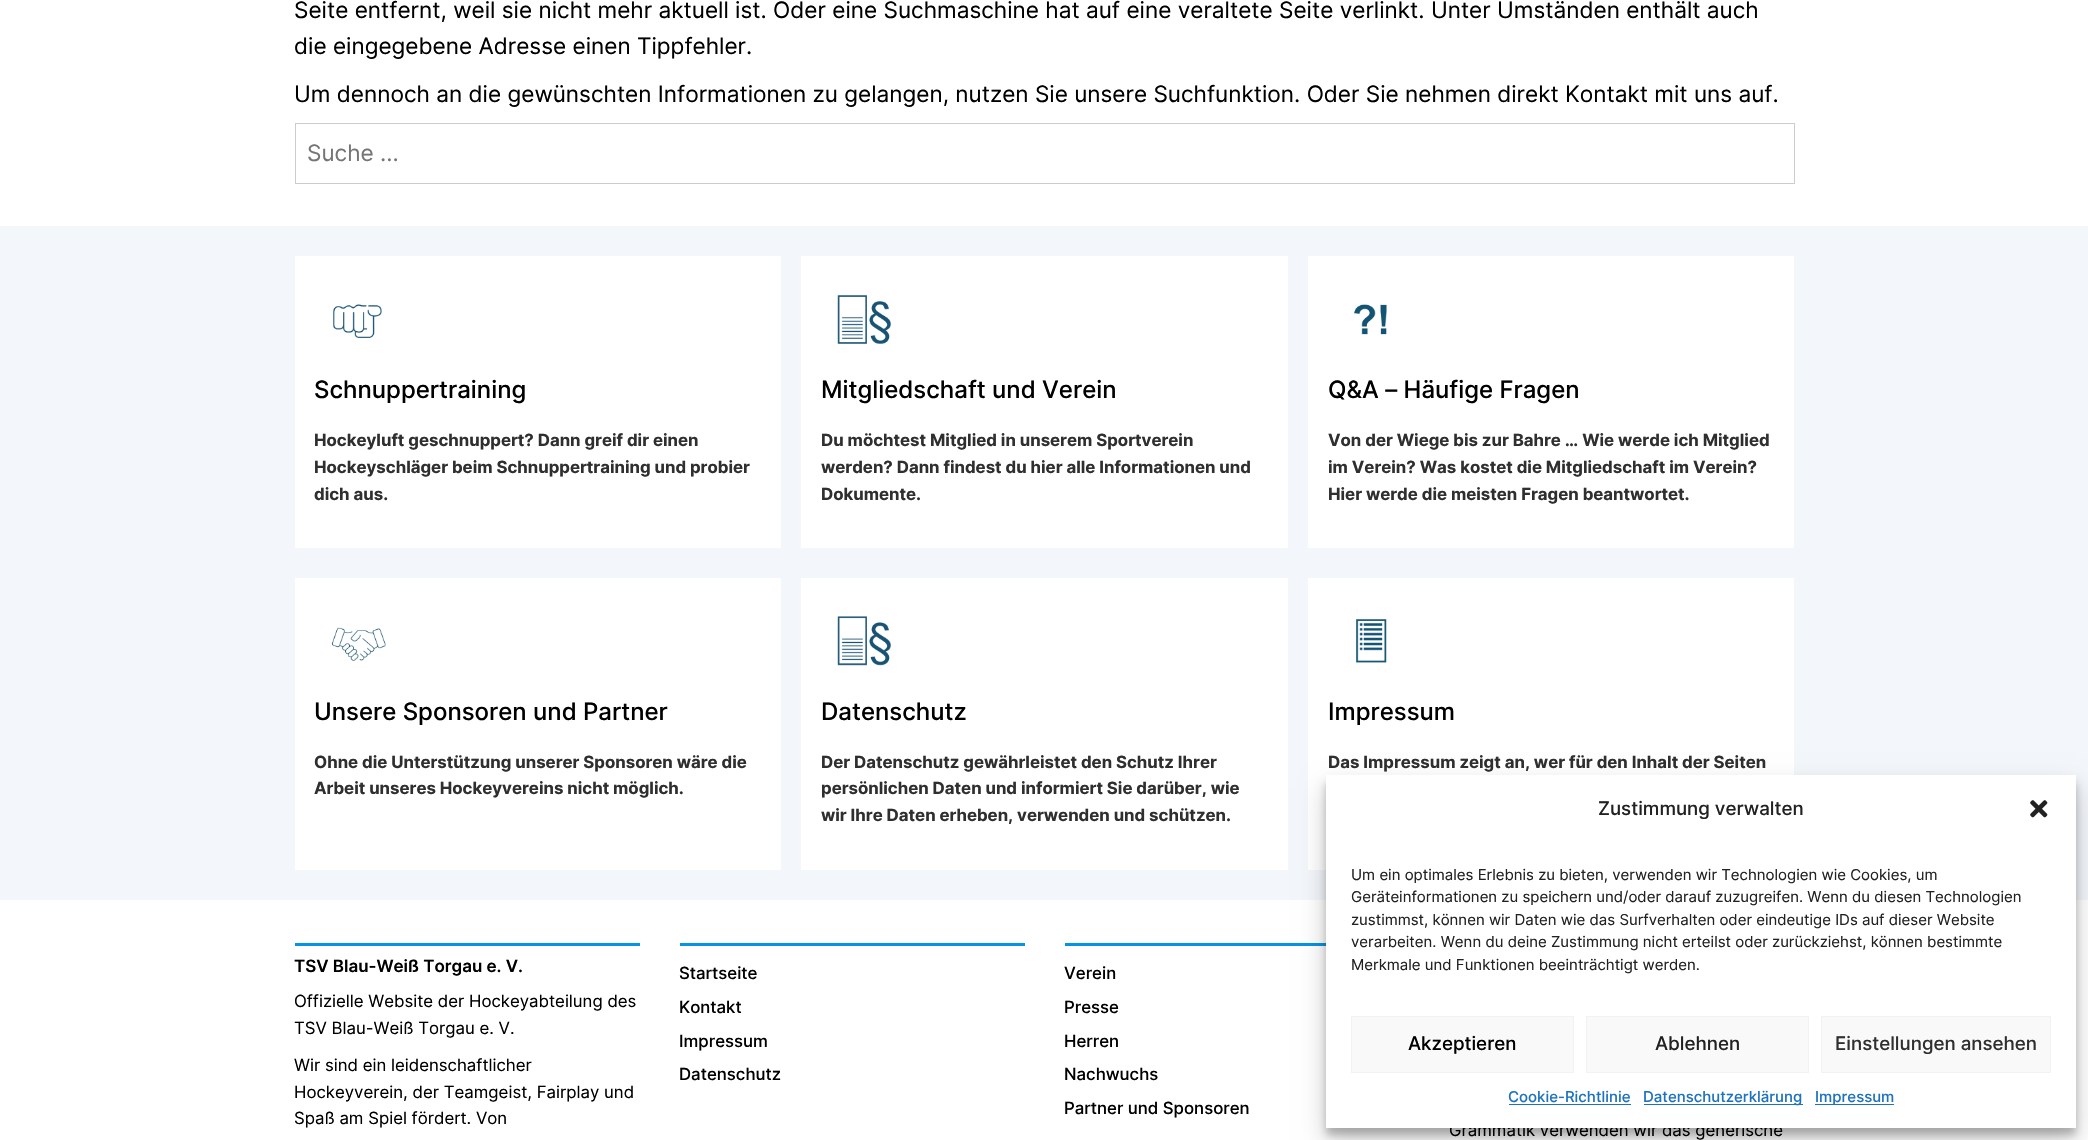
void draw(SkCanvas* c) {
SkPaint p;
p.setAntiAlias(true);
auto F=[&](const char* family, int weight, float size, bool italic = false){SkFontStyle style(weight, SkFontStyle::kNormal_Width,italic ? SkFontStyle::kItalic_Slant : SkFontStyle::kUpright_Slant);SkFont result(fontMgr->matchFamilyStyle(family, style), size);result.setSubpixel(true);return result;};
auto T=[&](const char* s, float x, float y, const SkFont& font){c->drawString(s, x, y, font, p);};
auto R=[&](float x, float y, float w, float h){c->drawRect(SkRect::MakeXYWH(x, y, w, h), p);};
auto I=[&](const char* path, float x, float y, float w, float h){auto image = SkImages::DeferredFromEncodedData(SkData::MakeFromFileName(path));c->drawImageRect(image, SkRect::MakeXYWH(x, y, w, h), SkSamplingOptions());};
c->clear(0xffffffff);
auto f1 = F("Inter",400,22.6);
p.setColor(0xff000000);
T("Seite entfernt, weil sie nicht mehr aktuell ist. Oder eine Suchmaschine hat auf eine veraltete Seite verlinkt. Unter Umständen enthält auch",294,18,f1);
T("die eingegebene Adresse einen Tippfehler.",294,54,f1);
T("Um dennoch an die gewünschten Informationen zu gelangen, nutzen Sie unsere Suchfunktion. Oder Sie nehmen direkt Kontakt mit uns auf.",294,102,f1);
p.setStroke(true);
p.setStrokeWidth(1);
p.setColor(0xffcccccc);
c->drawRect(SkRect::MakeXYWH(295.5,123.5,1499,60),p);
p.setStroke(false);
p.setColor(0xff757575);
T("Suche ...",307,161,f1);
p.setColor(0xfff3f6fb);
R(0,226,2088,674);
p.setColor(0xffffffff);
R(295,256,486,292);
I("1.png",332,304,50,34);
auto f2 = F("Inter",500,24);
p.setColor(0xff000000);
T("Schnuppertraining",314,398,f2);
auto f3 = F("Inter",700,16.8);
p.setColor(0xff2f2f2f);
T("Hockeyluft geschnuppert? Dann greif dir einen",314,446,f3);
T("Hockeyschläger beim Schnuppertraining und probier",314,473,f3);
T("dich aus.",314,500,f3);
p.setColor(0xffffffff);
R(801,256,487,292);
I("2.png",837,295,54,49);
p.setColor(0xff000000);
T("Mitgliedschaft und Verein",821,398,f2);
p.setColor(0xff2f2f2f);
T("Du möchtest Mitglied in unserem Sportverein",821,446,f3);
T("werden? Dann findest du hier alle Informationen und",821,473,f3);
T("Dokumente.",821,500,f3);
p.setColor(0xffffffff);
R(1308,256,486,292);
I("3.png",1354,304,33,31);
p.setColor(0xff000000);
T("Q&A – Häufige Fragen",1328,398,f2);
p.setColor(0xff2f2f2f);
T("Von der Wiege bis zur Bahre … Wie werde ich Mitglied",1328,446,f3);
T("im Verein? Was kostet die Mitgliedschaft im Verein?",1328,473,f3);
T("Hier werde die meisten Fragen beantwortet.",1328,500,f3);
p.setColor(0xffffffff);
R(295,578,486,292);
I("4.png",331,627,55,34);
p.setColor(0xff000000);
T("Unsere Sponsoren und Partner",314,720,f2);
p.setColor(0xff2f2f2f);
T("Ohne die Unterstützung unserer Sponsoren wäre die",314,768,f3);
T("Arbeit unseres Hockeyvereins nicht möglich.",314,794,f3);
p.setColor(0xffffffff);
R(801,578,487,292);
I("5.png",837,616,54,50);
p.setColor(0xff000000);
T("Datenschutz",821,720,f2);
p.setColor(0xff2f2f2f);
T("Der Datenschutz gewährleistet den Schutz Ihrer",821,768,f3);
T("persönlichen Daten und informiert Sie darüber, wie",821,794,f3);
T("wir Ihre Daten erheben, verwenden und schützen.",821,821,f3);
p.setColor(0xffffffff);
R(1308,578,486,292);
I("6.png",1356,619,31,44);
p.setColor(0xff000000);
T("Impressum",1328,720,f2);
p.setColor(0xff2f2f2f);
T("Das Impressum zeigt an, wer für den Inhalt der Seiten",1328,768,f3);
p.setColor(0xff0693e3);
R(295,943,345,3);
auto f4 = F("Inter",600,17);
p.setColor(0xff000000);
T("TSV Blau-Weiß Torgau e. V.",294,972,f4);
auto f5 = F("Inter",400,16.8);
T("Offizielle Website der Hockeyabteilung des",294,1007,f5);
T("TSV Blau-Weiß Torgau e. V.",294,1034,f5);
T("Wir sind ein leidenschaftlicher",294,1071,f5);
T("Hockeyverein, der Teamgeist, Fairplay und",294,1098,f5);
T("Spaß am Spiel fördert. Von",294,1124,f5);
p.setColor(0xff0693e3);
R(680,943,345,3);
auto f6 = F("Inter",500,16.8);
p.setColor(0xff000000);
T("Startseite",679,979,f6);
T("Kontakt",679,1013,f6);
T("Impressum",679,1047,f6);
T("Datenschutz",679,1080,f6);
p.setColor(0xff0693e3);
R(1065,943,261,3);
p.setColor(0xff000000);
T("Verein",1064,979,f6);
T("Presse",1064,1013,f6);
T("Herren",1064,1047,f6);
T("Nachwuchs",1064,1080,f6);
T("Partner und Sponsoren",1064,1114,f6);
T("Grammatik verwenden wir das generische",1449,1136,f5);
p.setColor(0x3b000000);
p.setMaskFilter(SkMaskFilter::MakeBlur(kNormal_SkBlurStyle, 4));
c->drawRect(SkRect::MakeXYWH(1326,783,750,352),p);
p.setMaskFilter(nullptr);
p.setColor(0x30000000);
p.setMaskFilter(SkMaskFilter::MakeBlur(kNormal_SkBlurStyle, 12.5));
c->drawRect(SkRect::MakeXYWH(1326,788,750,352),p);
p.setMaskFilter(nullptr);
p.setColor(0xffffffff);
R(1326,775,750,353);
auto f7 = F("Inter",500,18.75);
p.setColor(0xff222222);
T("Zustimmung verwalten",1598,815,f7);
I("7.png",2030,800,18,18);
auto f8 = F("Inter",400,15);
T("Um ein optimales Erlebnis zu bieten, verwenden wir Technologien wie Cookies, um",1351,880,f8);
T("Geräteinformationen zu speichern und/oder darauf zuzugreifen. Wenn du diesen Technologien",1351,902,f8);
T("zustimmst, können wir Daten wie das Surfverhalten oder eindeutige IDs auf dieser Website",1351,925,f8);
T("verarbeiten. Wenn du deine Zustimmung nicht erteilst oder zurückziehst, können bestimmte",1351,947,f8);
T("Merkmale und Funktionen beeinträchtigt werden.",1351,970,f8);
p.setColor(0xfff9f9f9);
c->drawRect(SkRect::MakeXYWH(1351.5,1016.5,222,56),p);
p.setStroke(true);
p.setColor(0xfff2f2f2);
c->drawRect(SkRect::MakeXYWH(1351.5,1016.5,222,56),p);
p.setStroke(false);
p.setColor(0xff000000);
T("Akzeptieren",1408,1050,f7);
p.setColor(0xfff9f9f9);
c->drawRect(SkRect::MakeXYWH(1586.5,1016.5,222,56),p);
p.setStroke(true);
p.setColor(0xfff2f2f2);
c->drawRect(SkRect::MakeXYWH(1586.5,1016.5,222,56),p);
p.setStroke(false);
p.setColor(0xff222222);
T("Ablehnen",1655,1050,f7);
p.setColor(0xfff9f9f9);
c->drawRect(SkRect::MakeXYWH(1821.5,1016.5,229,56),p);
p.setStroke(true);
p.setColor(0xfff2f2f2);
c->drawRect(SkRect::MakeXYWH(1821.5,1016.5,229,56),p);
p.setStroke(false);
p.setColor(0xff2f2f2f);
T("Einstellungen ansehen",1835,1050,f7);
auto f9 = F("Inter",500,15);
p.setColor(0xff1e73be);
T("Cookie-Richtlinie",1508,1102,f9);
R(1509,1104,122,1);
R(1644,1104,159,1);
T("Datenschutzerklärung",1643,1102,f9);
R(1815,1104,79,1);
T("Impressum",1815,1102,f9);
}
